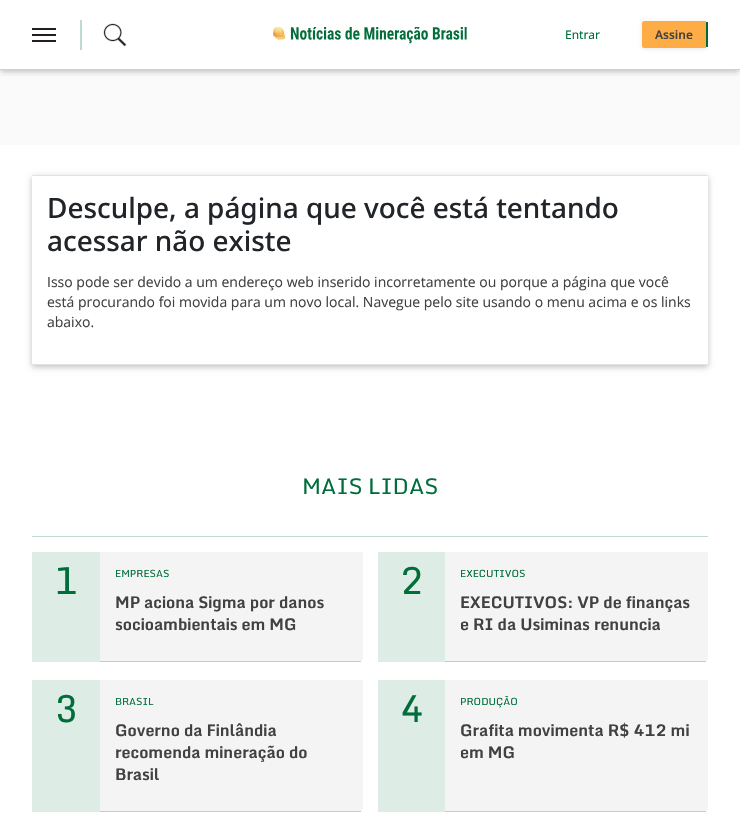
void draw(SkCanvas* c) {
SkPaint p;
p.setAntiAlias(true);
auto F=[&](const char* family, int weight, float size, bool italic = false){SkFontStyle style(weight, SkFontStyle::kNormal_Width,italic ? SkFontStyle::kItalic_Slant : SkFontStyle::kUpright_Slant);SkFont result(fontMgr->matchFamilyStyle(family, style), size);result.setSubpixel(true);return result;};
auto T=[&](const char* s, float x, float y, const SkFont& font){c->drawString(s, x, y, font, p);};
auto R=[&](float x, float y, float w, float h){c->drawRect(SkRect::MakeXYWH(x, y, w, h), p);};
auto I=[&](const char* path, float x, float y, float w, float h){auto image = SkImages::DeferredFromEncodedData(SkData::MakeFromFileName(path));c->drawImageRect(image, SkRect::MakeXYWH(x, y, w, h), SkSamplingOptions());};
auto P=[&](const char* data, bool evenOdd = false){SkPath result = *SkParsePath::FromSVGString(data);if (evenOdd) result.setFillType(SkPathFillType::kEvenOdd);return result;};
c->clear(0xffffffff);
p.setColor(0xfffafafa);
R(0,75,740,70);
c->save();
c->clipRect(SkRect::MakeXYWH(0,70,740,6));
p.setColor(0x40000000);
p.setMaskFilter(SkMaskFilter::MakeBlur(kNormal_SkBlurStyle, 3));
c->drawRect(SkRect::MakeXYWH(0,2,740,70),p);
p.setMaskFilter(nullptr);
c->restore();
p.setColor(0xffbfdbce);
R(0,69,740,1);
p.setColor(0xff231f20);
R(32,28,24,2);
R(32,34,24,2);
R(32,40,24,2);
p.setColor(0xffbfdbce);
R(80,20,2,30);
I("1.png",103,23,24,24);
I("2.png",273,27,194,17);
auto f1 = F("Noto Sans",400,12);
p.setColor(0xff006e3b);
T("Entrar",565,39,f1);
R(706,22,2,25);
p.setColor(0x17000000);
p.setMaskFilter(SkMaskFilter::MakeBlur(kNormal_SkBlurStyle, 2));
c->drawRoundRect(SkRect::MakeXYWH(642,22,64,27),2,2,p);
p.setMaskFilter(nullptr);
p.setColor(0xfffeac45);
c->drawPath(P("M644 21h62v27h-62c-1 0-2-1-2-2v-23c0-1 1-2 2-2z"),p);
auto f2 = F("Noto Sans",600,12);
p.setColor(0xff414141);
T("Assine",655,39,f2);
c->save();
c->clipPath(P("M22 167h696v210h-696zm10 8h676v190h-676z",true),true);
p.setColor(0x40000000);
p.setMaskFilter(SkMaskFilter::MakeBlur(kNormal_SkBlurStyle, 3));
c->drawRect(SkRect::MakeXYWH(32,177,676,190),p);
p.setMaskFilter(nullptr);
c->restore();
p.setColor(0xffe2e2e2);
R(32,175,676,1);
R(32,364,676,1);
auto f3 = F("Noto Sans",500,27.9);
p.setColor(0xff212529);
T("Desculpe, a página que você está tentando",47,218,f3);
T("acessar não existe",47,251,f3);
auto f4 = F("Open Sans",400,14);
p.setColor(0xff414141);
T("Isso pode ser devido a um endereço web inserido incorretamente ou porque a página que você",47,287,f4);
T("está procurando foi movida para um novo local. Navegue pelo site usando o menu acima e os links",47,307,f4);
T("abaixo.",47,327,f4);
p.setColor(0xffbfdbce);
R(32,536,676,1);
auto f5 = F("Monda",400,22);
p.setColor(0xff006e3b);
T("MAIS LIDAS",302,494,f5);
p.setColor(0xffdeece6);
R(32,552,68,110);
auto f6 = F("Monda",400,38);
p.setColor(0xff006e3b);
T("1",54,594,f6);
p.setColor(0xfff4f4f4);
c->drawPath(P("M100 552h263v106c0 2-2 4-4 4h-259z"),p);
p.setColor(0x40006e3b);
R(100,661,261,1);
auto f7 = F("Monda",400,10);
p.setColor(0xff006e3b);
T("EMPRESAS",115,577,f7);
auto f8 = F("Monda",700,16);
p.setColor(0xff414141);
T("MP aciona Sigma por danos",115,608,f8);
T("socioambientais em MG",115,630,f8);
p.setColor(0xffdeece6);
R(378,552,67,110);
p.setColor(0xff006e3b);
T("2",400,594,f6);
p.setColor(0xfff4f4f4);
c->drawPath(P("M445 552h263v106c0 2-2 4-4 4h-259z"),p);
p.setColor(0x40006e3b);
R(445,661,261,1);
p.setColor(0xff006e3b);
T("EXECUTIVOS",460,577,f7);
p.setColor(0xff414141);
T("EXECUTIVOS: VP de finanças",460,608,f8);
T("e RI da Usiminas renuncia",460,630,f8);
p.setColor(0xffdeece6);
R(32,680,68,132);
p.setColor(0xff006e3b);
T("3",54,722,f6);
p.setColor(0xfff4f4f4);
c->drawPath(P("M100 680h263v128c0 2-2 4-4 4h-259z"),p);
p.setColor(0x40006e3b);
R(100,811,261,1);
p.setColor(0xff006e3b);
T("BRASIL",115,705,f7);
p.setColor(0xff414141);
T("Governo da Finlândia",115,736,f8);
T("recomenda mineração do",115,758,f8);
T("Brasil",115,780,f8);
p.setColor(0xffdeece6);
R(378,680,67,132);
p.setColor(0xff006e3b);
T("4",400,722,f6);
p.setColor(0xfff4f4f4);
c->drawPath(P("M445 680h263v128c0 2-2 4-4 4h-259z"),p);
p.setColor(0x40006e3b);
R(445,811,261,1);
p.setColor(0xff006e3b);
T("PRODUÇÃO",460,705,f7);
p.setColor(0xff414141);
T("Grafita movimenta R$ 412 mi",460,736,f8);
T("em MG",460,758,f8);
}
